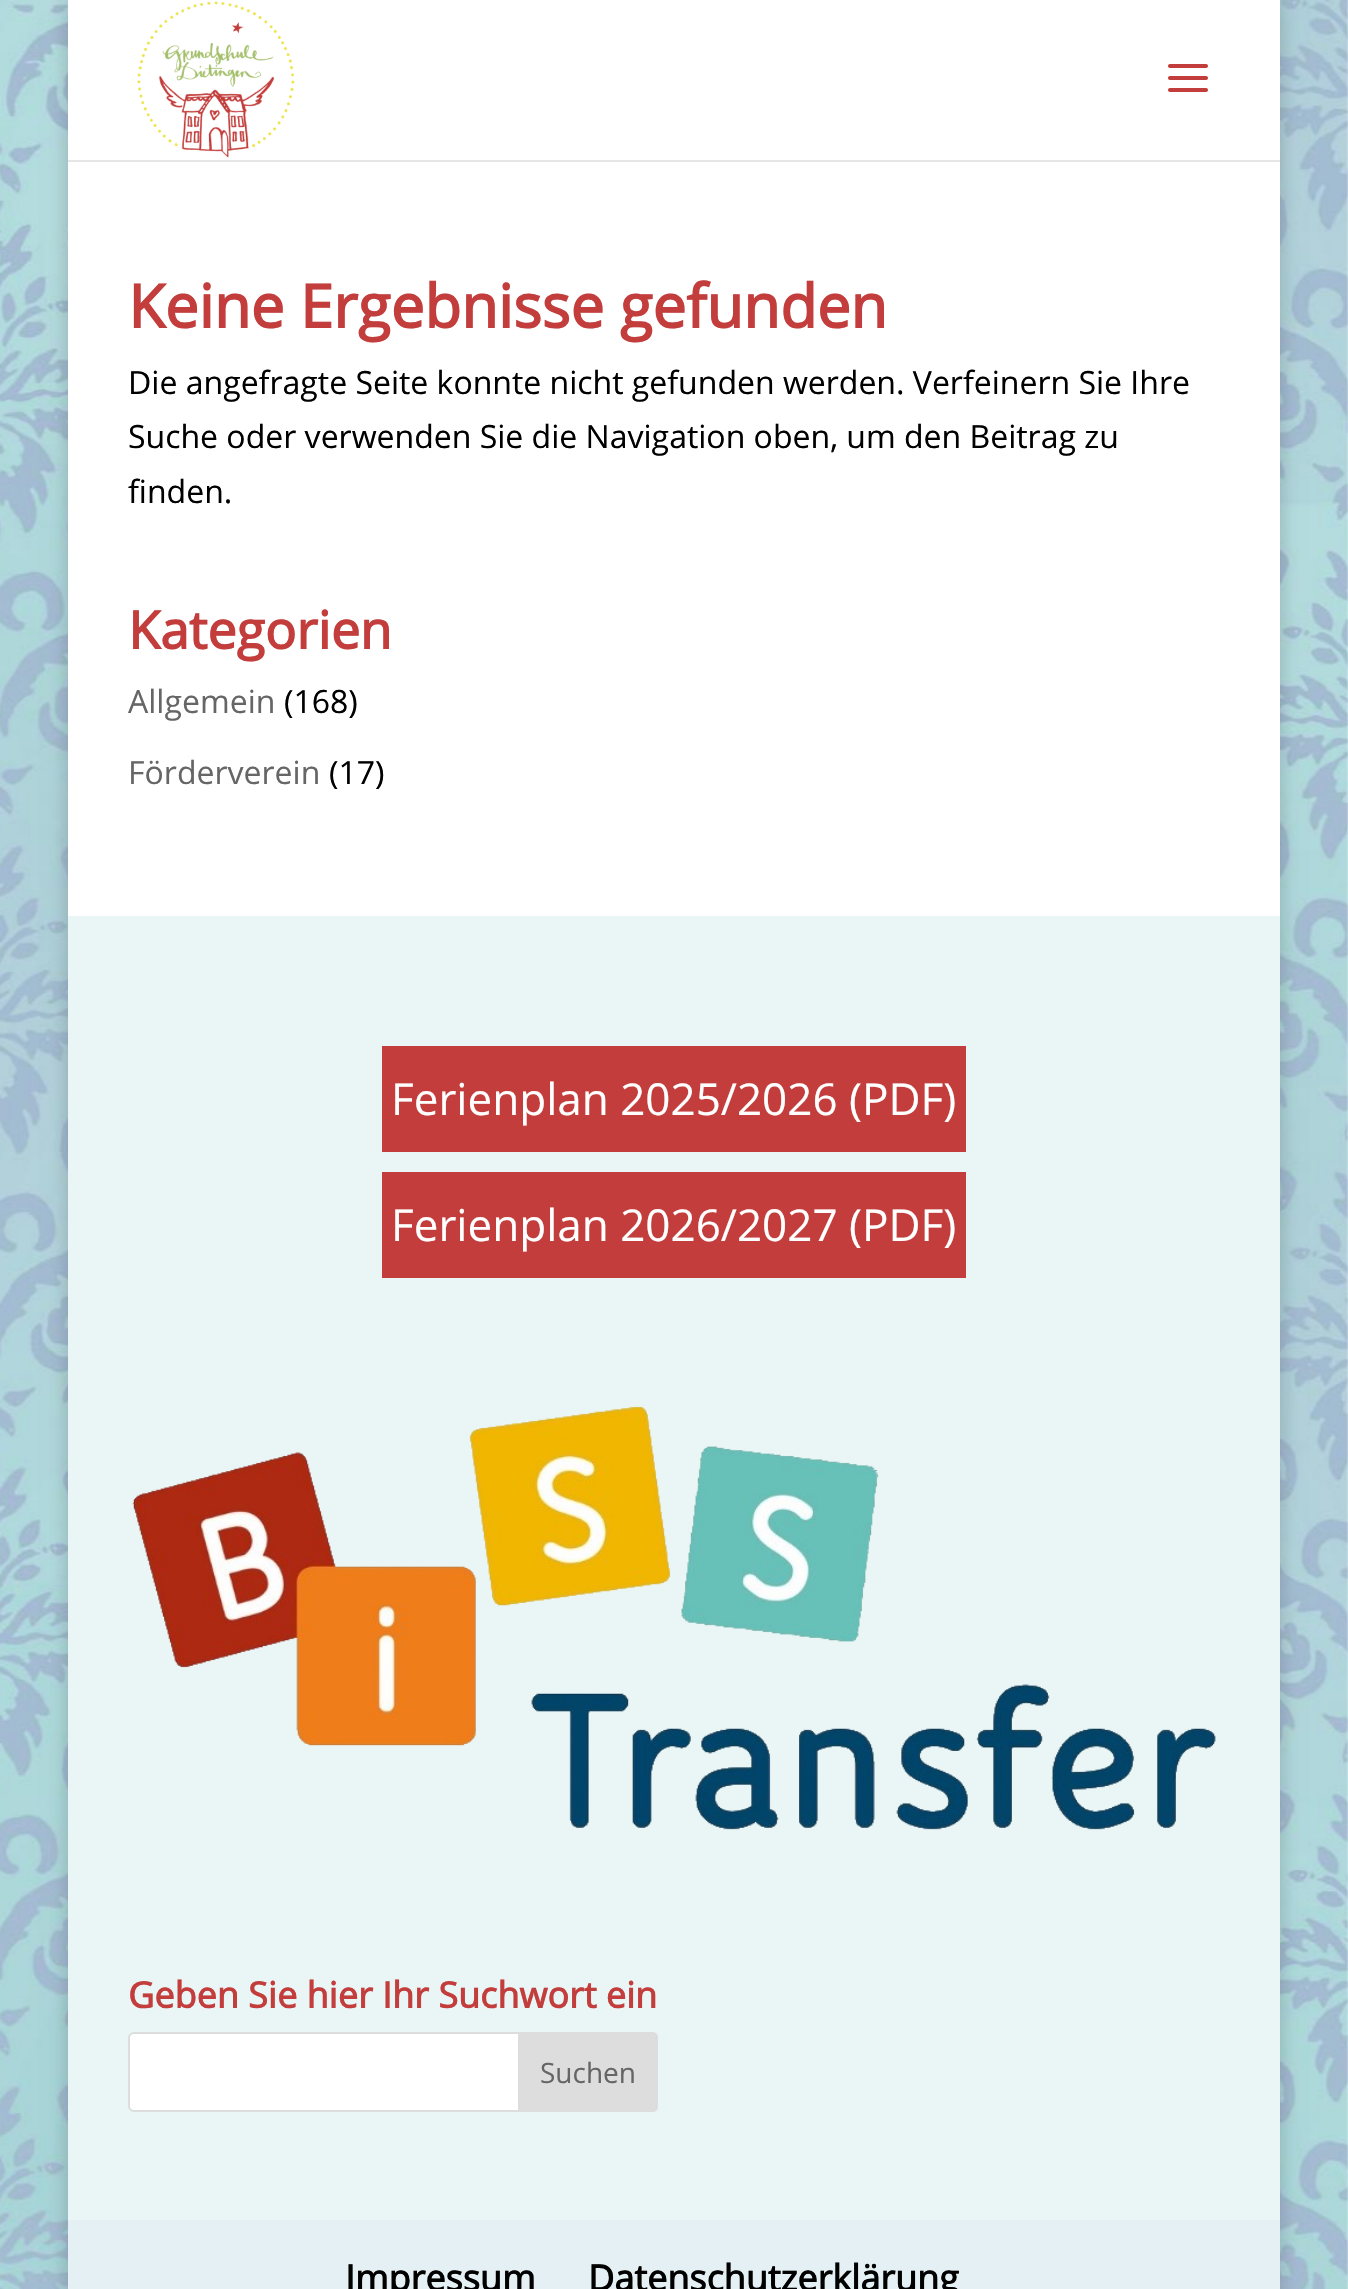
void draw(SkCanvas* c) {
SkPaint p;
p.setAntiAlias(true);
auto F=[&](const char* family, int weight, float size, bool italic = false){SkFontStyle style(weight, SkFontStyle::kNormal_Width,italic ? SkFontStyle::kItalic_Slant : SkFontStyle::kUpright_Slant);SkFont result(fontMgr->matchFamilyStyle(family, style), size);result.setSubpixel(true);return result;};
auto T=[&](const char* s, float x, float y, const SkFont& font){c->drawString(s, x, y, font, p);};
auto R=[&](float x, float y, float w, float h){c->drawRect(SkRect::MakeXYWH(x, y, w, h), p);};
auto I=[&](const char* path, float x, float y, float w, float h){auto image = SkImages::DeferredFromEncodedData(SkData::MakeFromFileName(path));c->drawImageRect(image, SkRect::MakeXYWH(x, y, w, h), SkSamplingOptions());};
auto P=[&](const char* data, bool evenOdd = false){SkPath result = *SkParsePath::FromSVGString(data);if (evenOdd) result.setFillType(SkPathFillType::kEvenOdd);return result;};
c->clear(0xffffffff);
I("1.png",0,0,1348,2289);
p.setColor(0x33000000);
p.setMaskFilter(SkMaskFilter::MakeBlur(kNormal_SkBlurStyle, 10));
c->drawRect(SkRect::MakeXYWH(68,0,1212,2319),p);
p.setMaskFilter(nullptr);
p.setColor(0xffe6e6e6);
R(68,160,1212,2);
p.setColor(0xffffffff);
R(68,0,1212,160);
I("2.png",137,1,158,157);
I("3.png",1168,64,40,28);
R(68,162,1212,754);
auto f1 = F("Open Sans",700,60);
p.setColor(0xffc23d3b);
T("Keine Ergebnisse gefunden",128,328,f1);
auto f2 = F("Open Sans",400,32);
p.setColor(0xff000000);
T("Die angefragte Seite konnte nicht gefunden werden. Verfeinern Sie Ihre",128,394,f2);
T("Suche oder verwenden Sie die Navigation oben, um den Beitrag zu",128,448,f2);
T("finden.",128,503,f2);
auto f3 = F("Open Sans",700,52);
p.setColor(0xffc23d3b);
T("Kategorien",128,649,f3);
p.setColor(0xff666666);
T("Allgemein",128,713,f2);
p.setColor(0xff000000);
T("(168)",284,713,f2);
p.setColor(0xff666666);
T("Förderverein",128,784,f2);
p.setColor(0xff000000);
T("(17)",329,784,f2);
p.setColor(0xffeaf6f6);
R(68,916,1212,1304);
p.setColor(0xffc23d3b);
R(382,1046,584,106);
auto f4 = F("Open Sans",400,44);
p.setColor(0xffffffff);
T("Ferienplan 2025/2026 (PDF)",391,1115,f4);
p.setColor(0xffc23d3b);
R(382,1172,584,106);
p.setColor(0xffffffff);
T("Ferienplan 2026/2027 (PDF)",391,1241,f4);
I("4.png",132,1406,1084,424);
auto f5 = F("Open Sans",700,36);
p.setColor(0xffc23d3b);
T("Geben Sie hier Ihr Suchwort ein",128,2008,f5);
p.setColor(0xffffffff);
c->drawRoundRect(SkRect::MakeXYWH(129,2033,528,78),5,5,p);
p.setStroke(true);
p.setStrokeWidth(2);
p.setColor(0xffdddddd);
c->drawRoundRect(SkRect::MakeXYWH(129,2033,528,78),5,5,p);
p.setStroke(false);
c->drawPath(P("M519 2033h133c3 0 5 2 5 5v68c0 3-2 5-5 5h-133z"),p);
p.setStroke(true);
c->drawPath(P("M519 2033h133c3 0 5 2 5 5v68c0 3-2 5-5 5h-133z"),p);
auto f6 = F("Open Sans",400,28);
p.setStroke(false);
p.setColor(0xff666666);
T("Suchen",540,2083,f6);
p.setColor(0xffe4f0f3);
R(68,2220,1212,69);
p.setColor(0xff000000);
T("Impressum",345,2291,f5);
T("Datenschutzerklärung",588,2291,f5);
}
